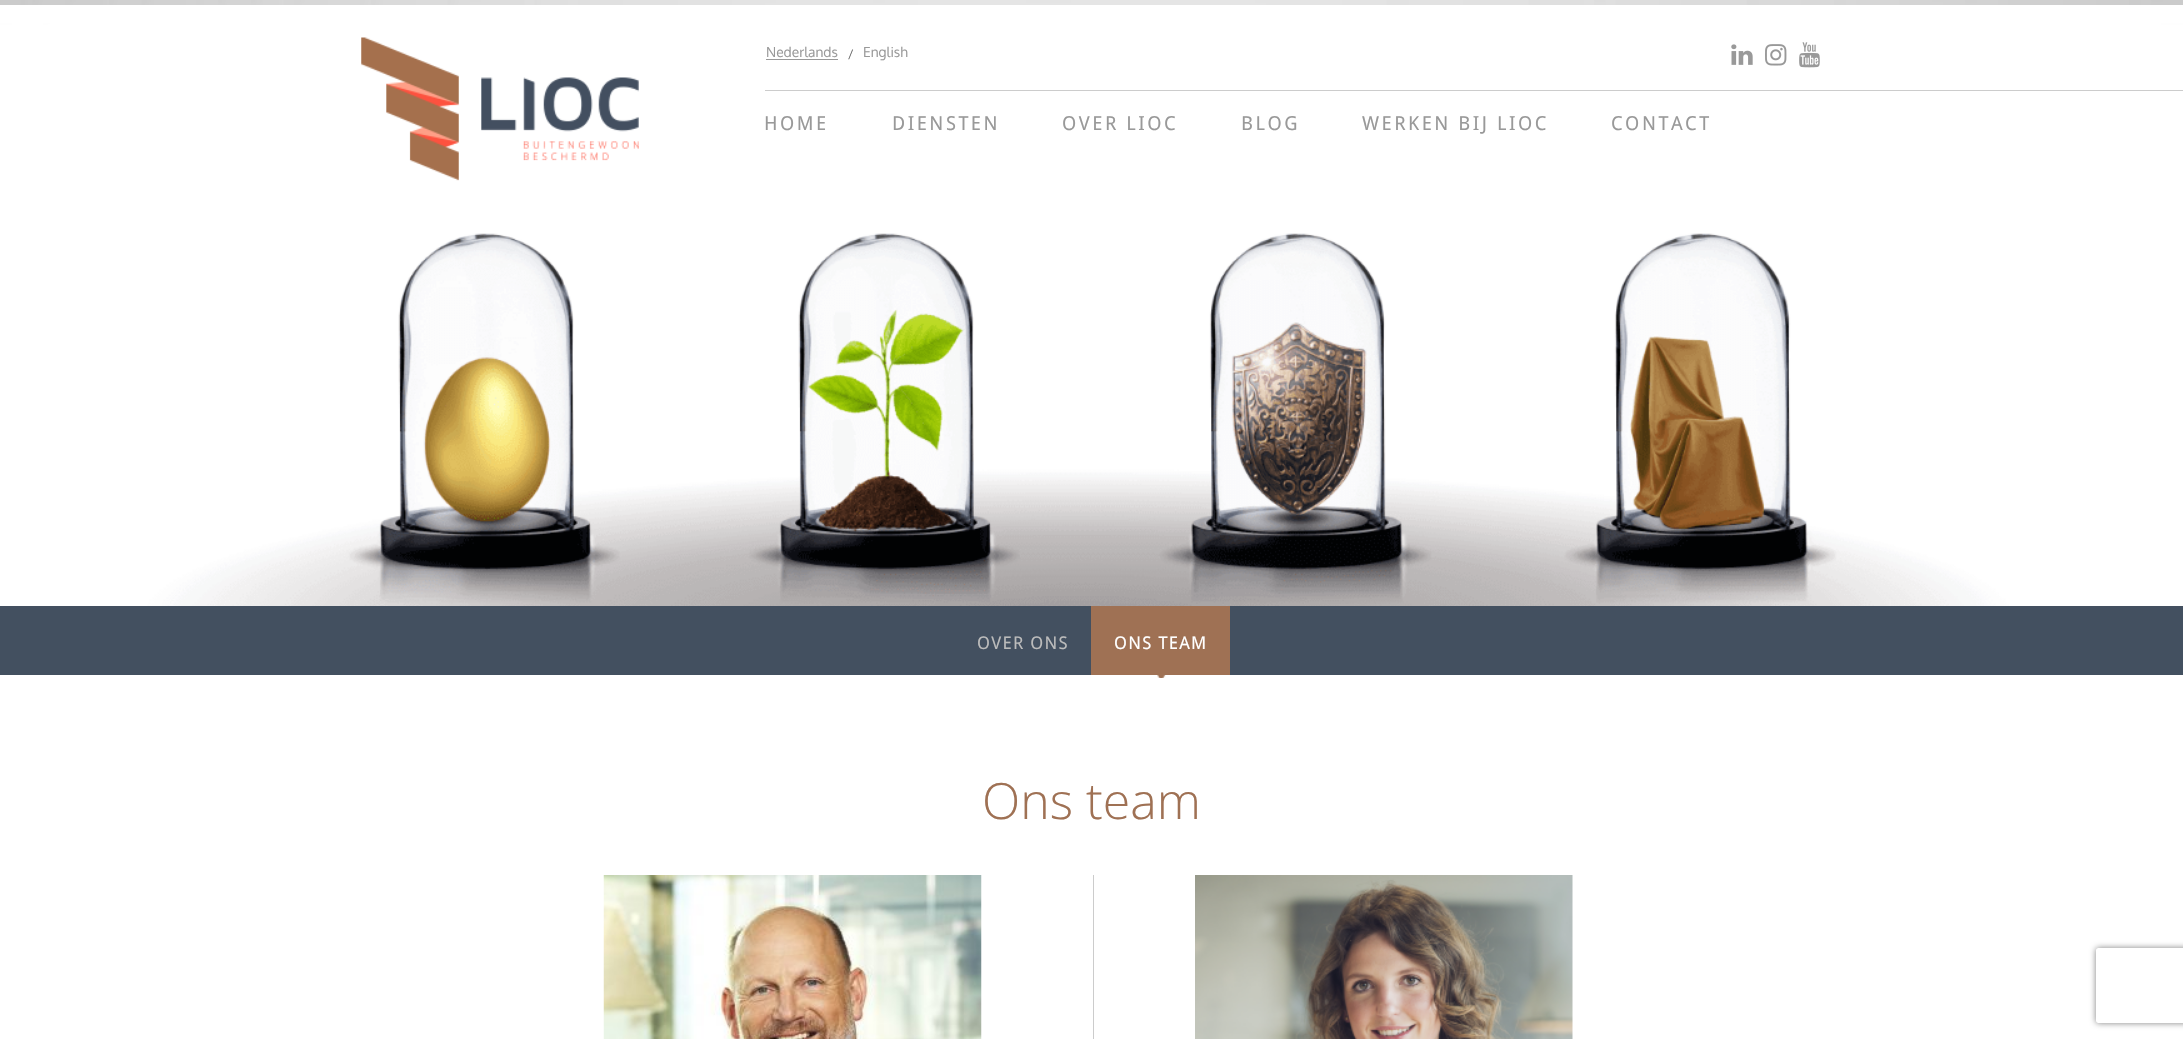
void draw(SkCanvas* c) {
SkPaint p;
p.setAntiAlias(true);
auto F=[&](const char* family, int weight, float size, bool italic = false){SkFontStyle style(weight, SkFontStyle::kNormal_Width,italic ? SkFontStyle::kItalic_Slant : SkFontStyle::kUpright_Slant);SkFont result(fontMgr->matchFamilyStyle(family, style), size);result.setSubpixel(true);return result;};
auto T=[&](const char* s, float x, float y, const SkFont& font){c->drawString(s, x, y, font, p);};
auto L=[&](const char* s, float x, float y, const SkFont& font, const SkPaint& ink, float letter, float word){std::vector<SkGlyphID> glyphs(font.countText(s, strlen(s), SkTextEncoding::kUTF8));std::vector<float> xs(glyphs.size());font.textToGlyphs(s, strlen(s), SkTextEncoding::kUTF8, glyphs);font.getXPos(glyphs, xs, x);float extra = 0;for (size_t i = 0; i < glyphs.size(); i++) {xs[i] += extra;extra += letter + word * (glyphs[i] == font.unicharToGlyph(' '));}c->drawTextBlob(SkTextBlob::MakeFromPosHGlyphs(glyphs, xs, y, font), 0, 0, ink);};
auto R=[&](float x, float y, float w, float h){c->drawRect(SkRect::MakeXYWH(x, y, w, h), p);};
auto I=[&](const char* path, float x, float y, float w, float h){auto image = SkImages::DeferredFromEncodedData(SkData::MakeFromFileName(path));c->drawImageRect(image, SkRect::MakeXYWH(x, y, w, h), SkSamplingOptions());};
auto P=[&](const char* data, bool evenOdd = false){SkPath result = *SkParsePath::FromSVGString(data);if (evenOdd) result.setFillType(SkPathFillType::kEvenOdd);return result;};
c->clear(0xffffffff);
I("1.png",0,0,2183,25);
I("7.png",92,233,2001,373);
I("2.png",0,5,2183,334);
I("3.png",361,37,278,144);
auto f1 = F("Oxygen",400,13.75);
p.setColor(0xff999999);
T("Nederlands",766,57,f1);
R(766,59,72,1);
auto f2 = F("Oxygen",400,12);
p.setColor(0xff666666);
T("/",848,58,f2);
p.setColor(0xff999999);
T("English",863,57,f1);
p.setColor(0xffcccccc);
R(765,90,1418,1);
I("4.png",1731,44,22,21);
I("5.png",1765,44,22,22);
I("6.png",1799,42,21,26);
auto f3 = F("Droid Sans",400,19.25);
p.setColor(0xff999999);
L("HOME",764,130,f3,p,2.5,0);
L("DIENSTEN",892,130,f3,p,2.5,0);
L("OVER LIOC",1062,130,f3,p,2.5,0);
L("BLOG",1241,130,f3,p,2.5,0);
L("WERKEN BIJ LIOC",1362,130,f3,p,2.5,0);
L("CONTACT",1611,130,f3,p,2.5,0);
p.setColor(0xff435060);
R(0,606,2183,69);
auto f4 = F("Droid Sans",400,17.5);
p.setColor(0xffbbbbbb);
L("OVER ONS",977,649,f4,p,1.25,0);
p.setColor(0xff9f7154);
R(1091,606,139,69);
p.setColor(0xffffffff);
L("ONS TEAM",1114,649,f4,p,1.25,0);
I("8.png",1157,675,9,3);
auto f5 = F("Open Sans",300,50);
p.setColor(0xff9f7154);
T("Ons team",982,819,f5);
p.setColor(0xffcccccc);
R(1093,875,1,164);
I("9.png",603,875,379,164);
I("10.png",1195,875,378,164);
c->save();
c->clipPath(P("M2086 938h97v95h-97zm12.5 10h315c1.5 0 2.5 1 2.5 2.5v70c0 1.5-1 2.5-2.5 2.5h-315c-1.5 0-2.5-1-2.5-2.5v-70c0-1.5 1-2.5 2.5-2.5z",true),true);
p.setColor(0xff808080);
p.setMaskFilter(SkMaskFilter::MakeBlur(kNormal_SkBlurStyle, 3));
c->drawRoundRect(SkRect::MakeXYWH(2096,948,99,75),2.5,2.5,p);
p.setMaskFilter(nullptr);
c->restore();
}
